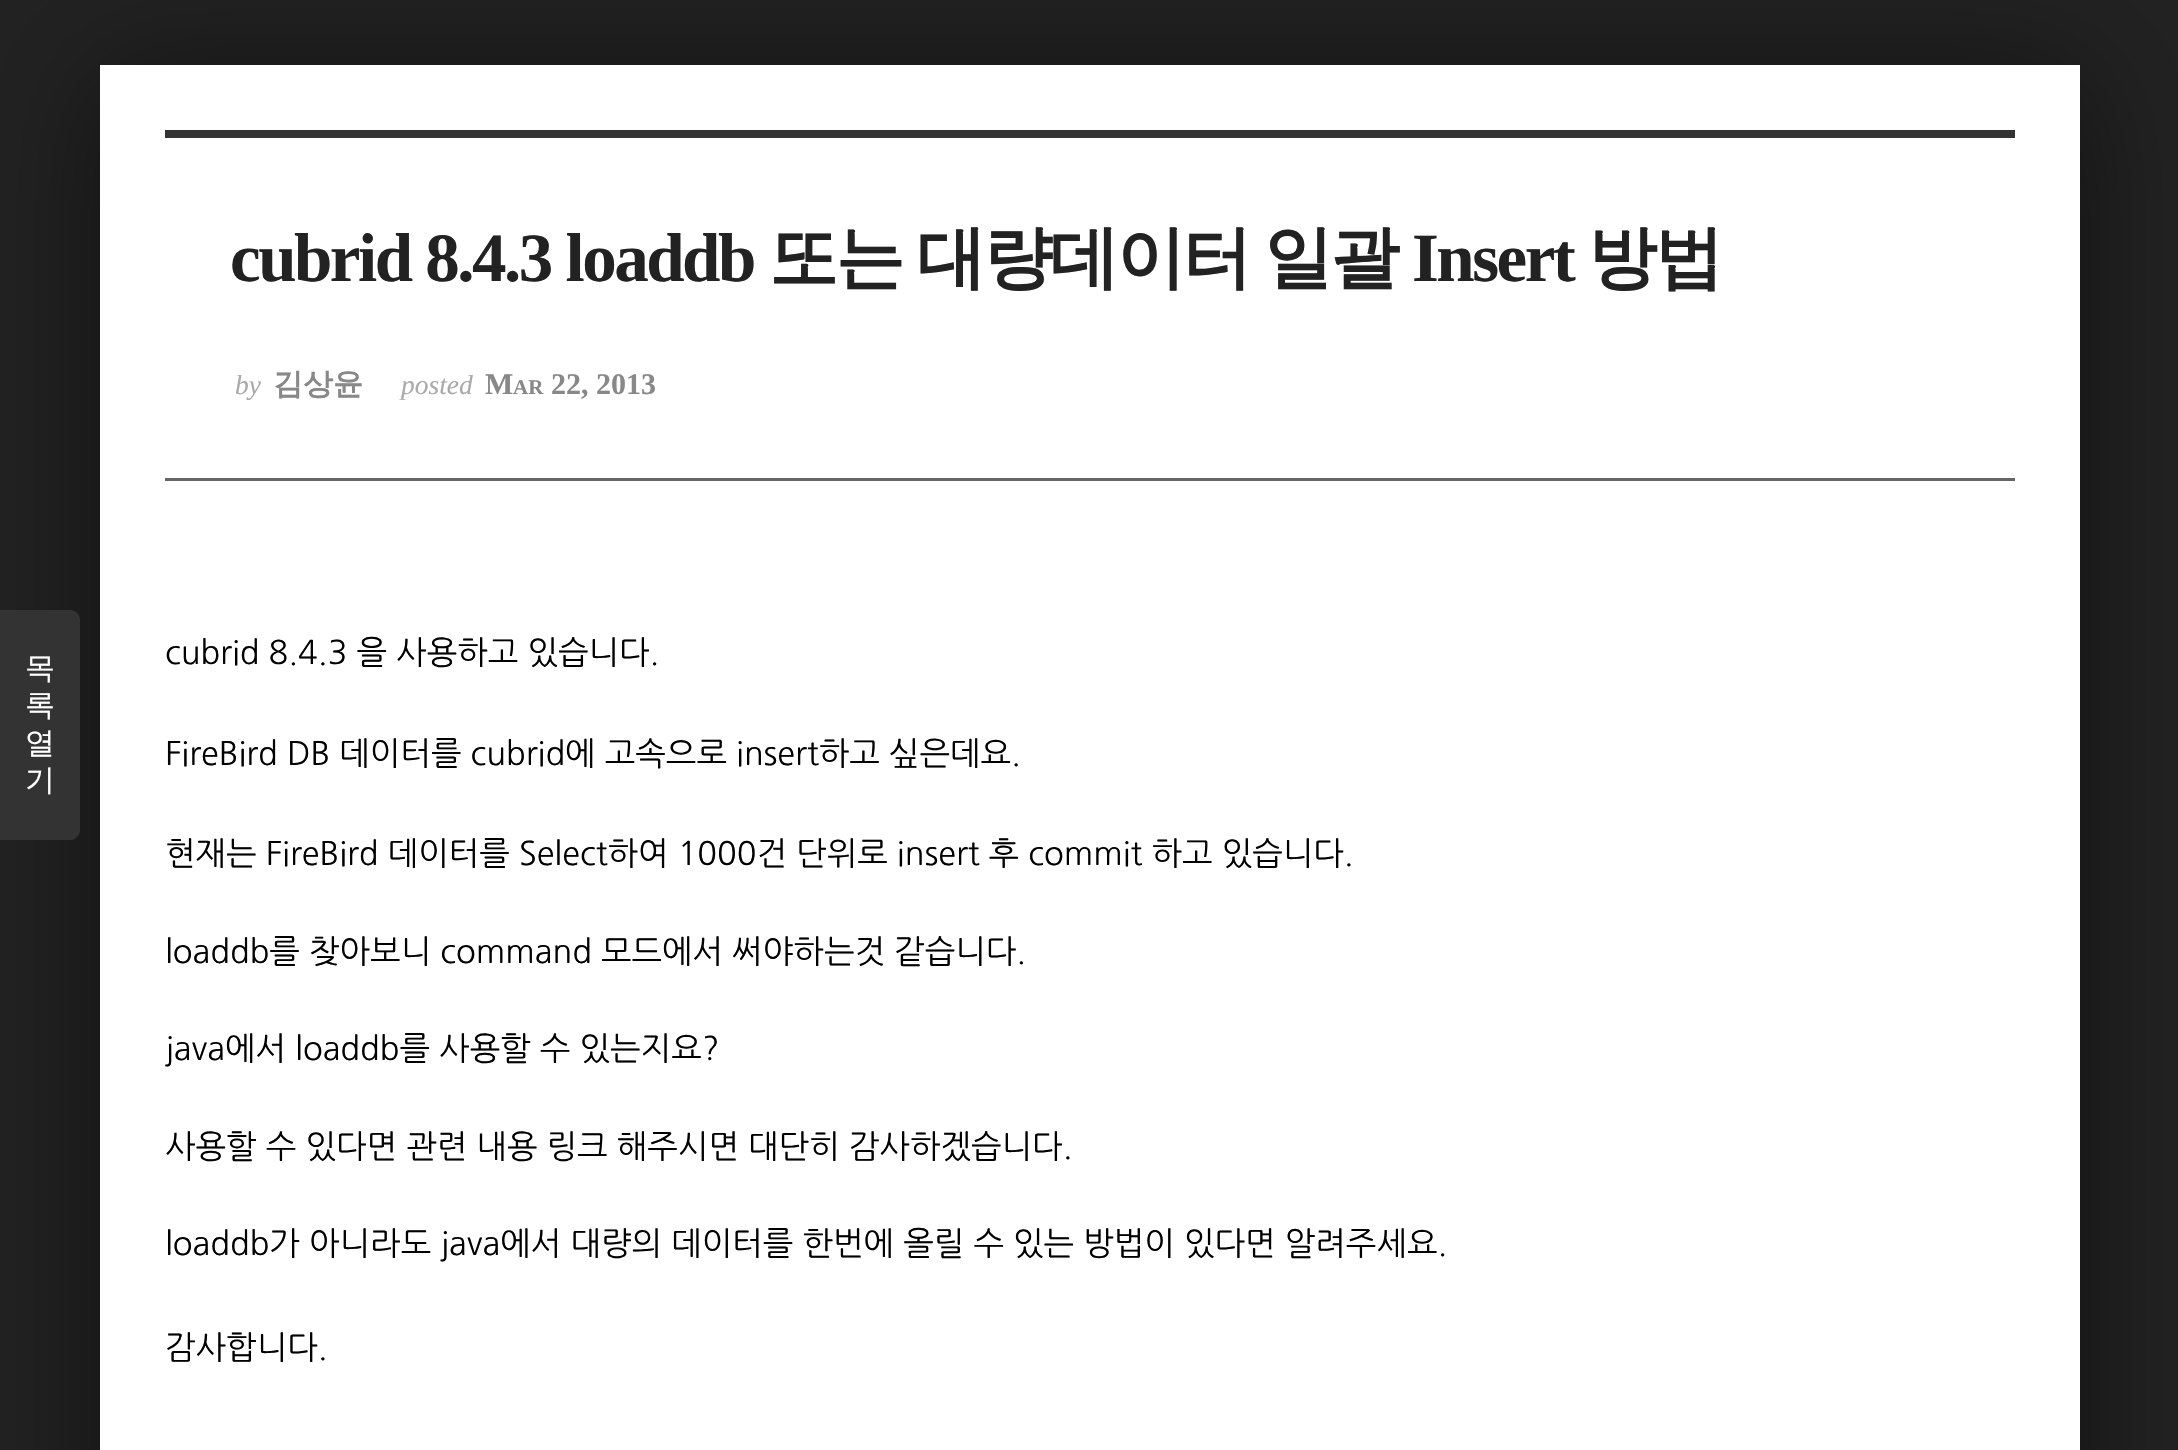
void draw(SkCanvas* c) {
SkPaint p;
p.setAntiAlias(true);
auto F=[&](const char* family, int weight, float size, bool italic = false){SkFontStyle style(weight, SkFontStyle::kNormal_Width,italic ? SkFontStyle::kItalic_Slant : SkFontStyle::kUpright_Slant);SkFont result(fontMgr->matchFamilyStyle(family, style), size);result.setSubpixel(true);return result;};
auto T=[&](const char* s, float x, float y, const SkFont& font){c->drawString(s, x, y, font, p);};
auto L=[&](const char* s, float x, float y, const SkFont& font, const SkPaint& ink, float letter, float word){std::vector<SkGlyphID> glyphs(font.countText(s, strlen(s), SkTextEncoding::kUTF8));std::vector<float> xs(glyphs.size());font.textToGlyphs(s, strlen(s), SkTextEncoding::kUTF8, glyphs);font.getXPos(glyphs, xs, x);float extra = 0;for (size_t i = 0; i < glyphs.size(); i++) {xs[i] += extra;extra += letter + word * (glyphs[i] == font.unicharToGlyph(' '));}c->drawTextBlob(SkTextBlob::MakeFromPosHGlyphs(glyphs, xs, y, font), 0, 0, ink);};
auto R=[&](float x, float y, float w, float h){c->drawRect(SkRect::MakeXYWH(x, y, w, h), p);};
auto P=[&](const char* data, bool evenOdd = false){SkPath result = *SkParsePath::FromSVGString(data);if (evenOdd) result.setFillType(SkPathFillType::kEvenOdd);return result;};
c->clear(0xff222222);
p.setColor(0x80000000);
p.setMaskFilter(SkMaskFilter::MakeBlur(kNormal_SkBlurStyle, 60));
c->drawRect(SkRect::MakeXYWH(100,75,1980,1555),p);
p.setMaskFilter(nullptr);
p.setColor(0xffffffff);
R(100,65,1980,1385);
p.setColor(0xff333333);
c->drawPath(P("M0 610h70c5.5 0 10 4.5 10 10v210c0 5.5-4.5 10-10 10h-70z"),p);
auto f1 = F("WenQuanYi Zen Hei",500,30);
p.setColor(0xffffffff);
T("목",25,678,f1);
T("록",25,715,f1);
T("열",25,753,f1);
T("기",25,790,f1);
p.setColor(0xff333333);
R(165,130,1850,8);
p.setColor(0xff666666);
R(165,478,1850,3);
auto f2 = F("Liberation Serif",700,69);
p.setColor(0xff222222);
L("cubrid 8.4.3 loaddb",230,281,f2,p,-2.5,0);
auto f3 = F("WenQuanYi Zen Hei",700,69);
L("또는",769,281,f3,p,-2.5,0);
L("대량데이터",917,281,f3,p,-2.5,0);
L("일괄",1264,281,f3,p,-2.5,0);
L("Insert",1412,281,f2,p,-2.5,0);
L("방법",1588,281,f3,p,-2.5,0);
auto f4 = F("Liberation Serif",400,27.5,true);
p.setColor(0xffaaaaaa);
T("by",235,394,f4);
auto f5 = F("WenQuanYi Zen Hei",700,30);
p.setColor(0xff888888);
T("김상윤",273,394,f5);
p.setColor(0xffaaaaaa);
T("posted",401,394,f4);
auto f6 = F("Liberation Serif",700,30);
p.setColor(0xff888888);
T("M",485,394,f6);
auto f7 = F("Liberation Serif",700,21);
T("AR",513,394,f7);
T("22, 2013",551,394,f6);
auto f8 = F("NanumGothic",400,32.5);
p.setColor(0xff000000);
T("cubrid 8.4.3 을 사용하고 있습니다.",165,664,f8);
T("FireBird DB 데이터를 cubrid에 고속으로 insert하고 싶은데요.",165,765,f8);
T("현재는 FireBird 데이터를 Select하여 1000건 단위로 insert 후 commit 하고 있습니다.",165,865,f8);
T("loaddb를 찾아보니 command 모드에서 써야하는것 같습니다.",165,963,f8);
T("java에서 loaddb를 사용할 수 있는지요?",165,1060,f8);
T("사용할 수 있다면 관련 내용 링크 해주시면 대단히 감사하겠습니다.",165,1158,f8);
T("loaddb가 아니라도 java에서 대량의 데이터를 한번에 올릴 수 있는 방법이 있다면 알려주세요.",165,1255,f8);
T("감사합니다.",165,1359,f8);
}
